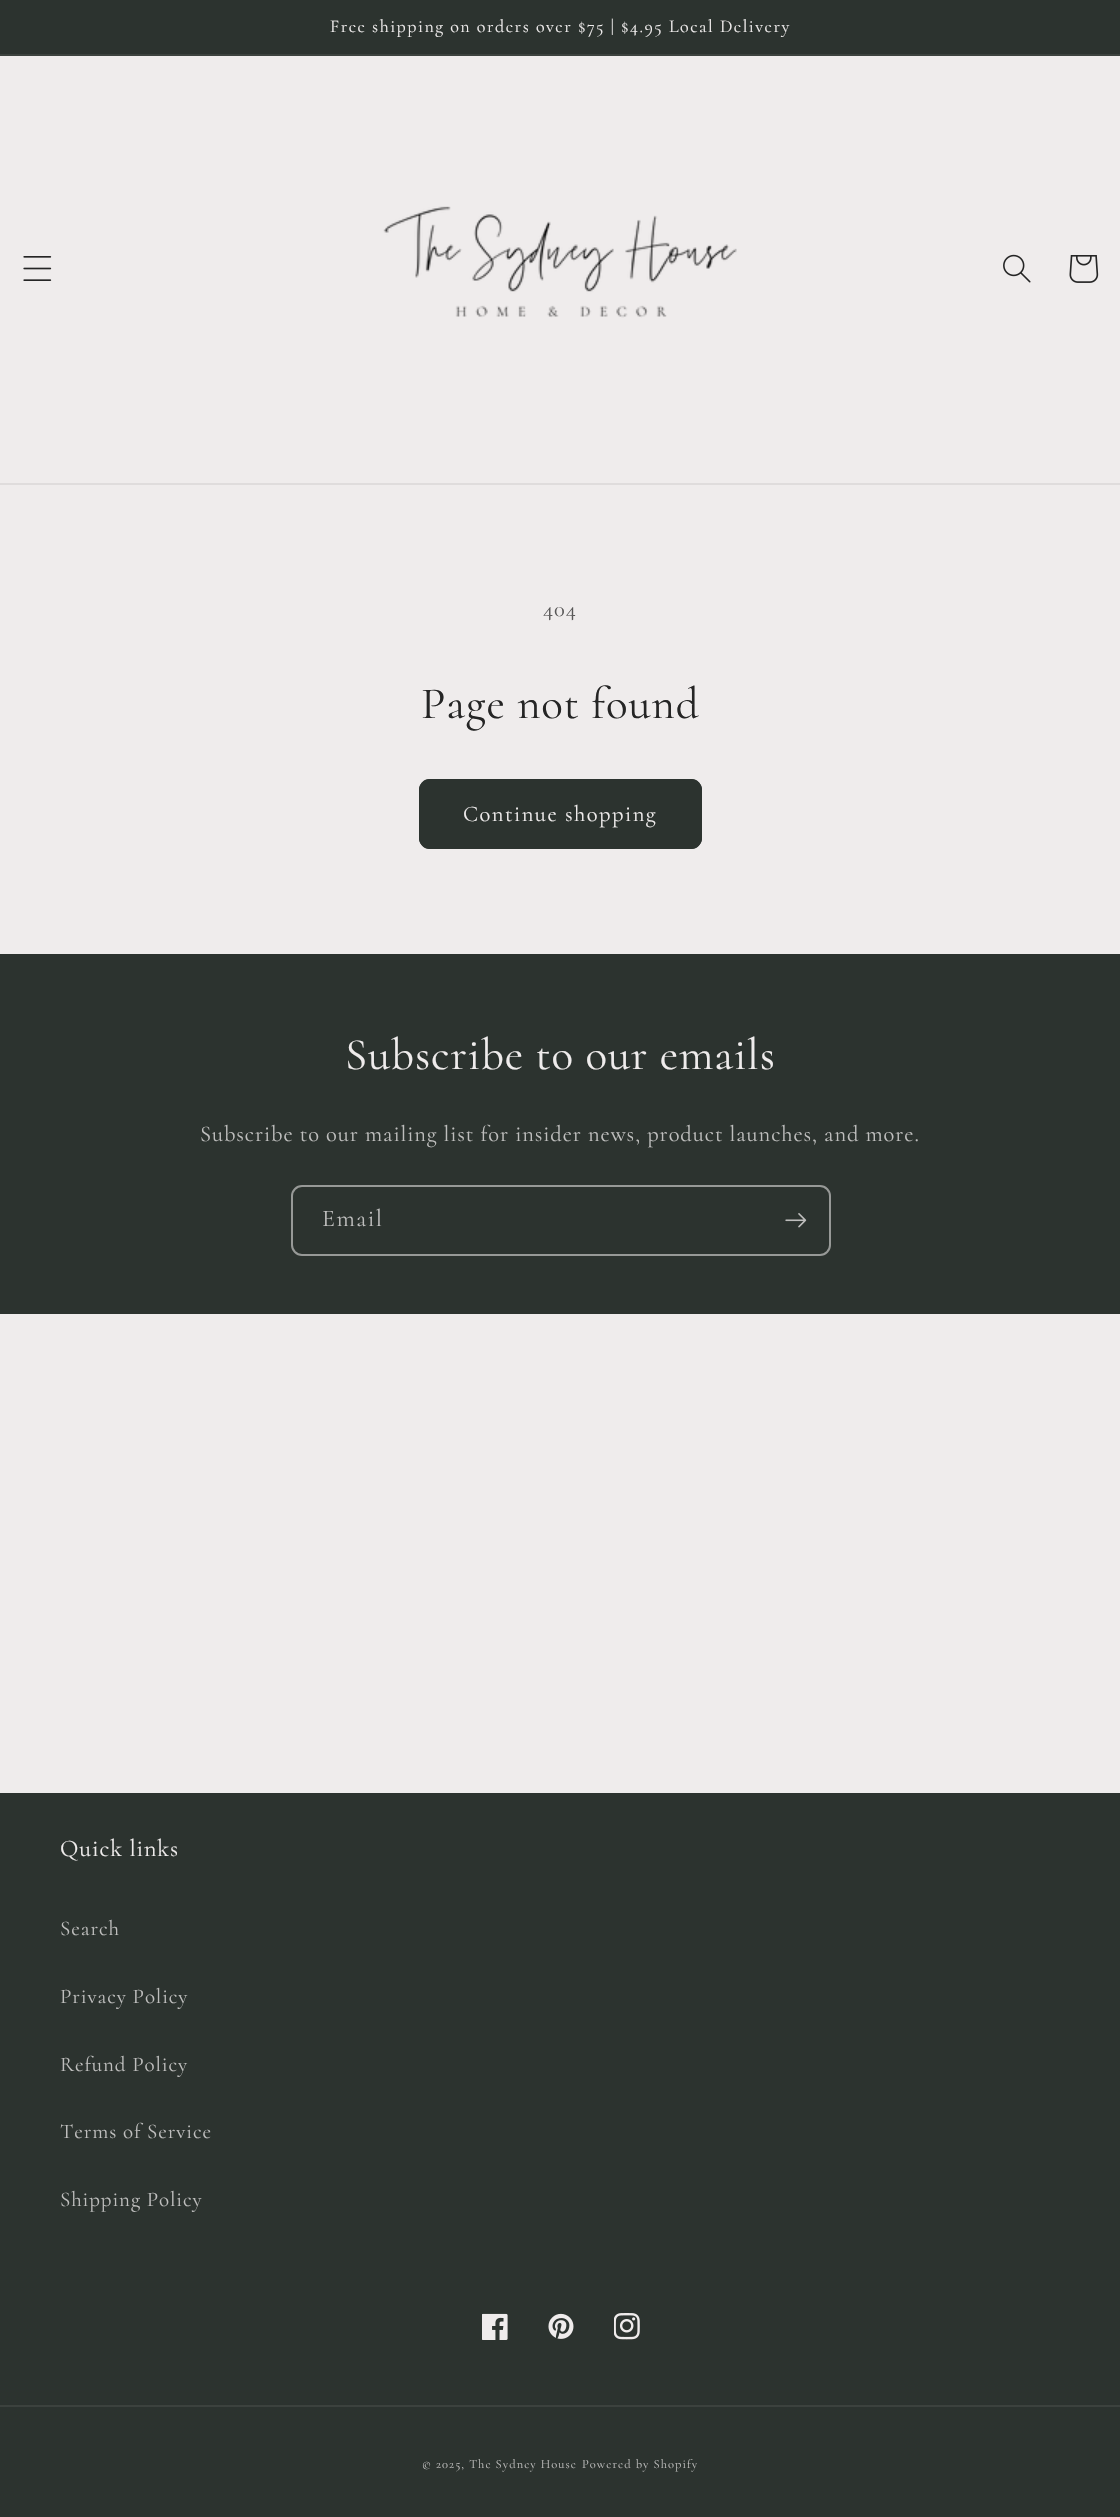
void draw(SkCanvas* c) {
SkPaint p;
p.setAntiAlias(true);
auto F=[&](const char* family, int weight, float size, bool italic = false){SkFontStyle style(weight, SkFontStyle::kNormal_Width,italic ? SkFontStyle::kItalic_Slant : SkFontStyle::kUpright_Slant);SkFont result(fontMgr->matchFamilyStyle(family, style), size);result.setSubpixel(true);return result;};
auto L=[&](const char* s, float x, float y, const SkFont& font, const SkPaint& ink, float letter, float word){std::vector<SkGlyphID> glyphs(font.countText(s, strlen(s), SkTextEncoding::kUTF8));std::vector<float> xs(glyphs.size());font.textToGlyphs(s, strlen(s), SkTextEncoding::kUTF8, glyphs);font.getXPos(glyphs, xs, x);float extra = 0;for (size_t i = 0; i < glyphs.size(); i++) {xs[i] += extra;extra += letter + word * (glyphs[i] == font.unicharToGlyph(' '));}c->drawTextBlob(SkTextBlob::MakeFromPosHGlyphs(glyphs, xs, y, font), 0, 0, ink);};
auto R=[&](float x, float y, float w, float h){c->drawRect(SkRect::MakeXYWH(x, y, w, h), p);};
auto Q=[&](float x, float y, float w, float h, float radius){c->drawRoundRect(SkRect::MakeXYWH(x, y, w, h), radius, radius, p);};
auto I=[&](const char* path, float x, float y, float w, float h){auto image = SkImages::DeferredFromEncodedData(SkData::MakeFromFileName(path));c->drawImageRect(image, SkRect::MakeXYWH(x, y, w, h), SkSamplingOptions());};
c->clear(0xffefecec);
p.setColor(0xff2c332f);
R(0,0,1120,54);
p.setColor(0xff3c423e);
R(0,54,1120,2);
auto f1 = F("Cormorant",400,18);
p.setColor(0xffefecec);
L("Free shipping on orders over $75 | $4.95 Local Delivery",330,32,f1,p,1.5,0);
p.setColor(0xffdfdcdc);
R(0,483,1120,2);
I("1.png",23,256,29,25);
I("2.png",383,206,354,112);
I("3.png",1003,254,28,29);
I("4.png",1069,255,30,28);
auto f2 = F("Cormorant",400,22.5);
p.setColor(0xff585757);
L("404",543,616,f2,p,.9,0);
auto f3 = F("Cormorant",400,45);
p.setColor(0xff252525);
L("Page not found",421,718,f3,p,.9,0);
p.setColor(0xff2c332f);
Q(419,779,283,70,11);
p.setStroke(true);
p.setStrokeWidth(2);
c->drawRoundRect(SkRect::MakeXYWH(420,780,281,68),10,10,p);
p.setStroke(false);
p.setColor(0xffefecec);
L("Continue shopping",463,821,f2,p,1.5,0);
p.setColor(0xff2c332f);
R(0,954,1120,360);
p.setColor(0xffefecec);
L("Subscribe to our emails",345,1069,f3,p,.9,0);
p.setColor(0xffbebebd);
L("Subscribe to our mailing list for insider news, product launches, and more.",200,1141,f2,p,.9,0);
p.setStroke(true);
p.setColor(0xff979997);
c->drawRoundRect(SkRect::MakeXYWH(292,1186,538,69),10,10,p);
auto f4 = F("Cormorant",400,24);
p.setStroke(false);
p.setColor(0xffbebebd);
L("Email",322,1226,f4,p,1.5,0);
I("5.png",785,1213,22,15);
p.setColor(0xff2c332f);
R(0,1793,1120,724);
p.setColor(0xffefecec);
L("Quick links",60,1856,f4,p,.9,0);
auto f5 = F("Cormorant",400,21);
p.setColor(0xffbebebd);
L("Search",60,1935,f5,p,.9,0);
L("Privacy Policy",60,2003,f5,p,.9,0);
L("Refund Policy",60,2071,f5,p,.9,0);
L("Terms of Service",60,2138,f5,p,.9,0);
L("Shipping Policy",60,2206,f5,p,.9,0);
I("6.png",482,2313,26,27);
I("7.png",548,2313,26,26);
I("8.png",614,2313,26,27);
p.setColor(0xff3c423e);
R(0,2405,1120,2);
auto f6 = F("Cormorant",400,12.5);
p.setColor(0xffbebebd);
L("© 2025, The Sydney House",422,2468,f6,p,1.05,0);
L("Powered by Shopify",582,2468,f6,p,1.05,0);
}
